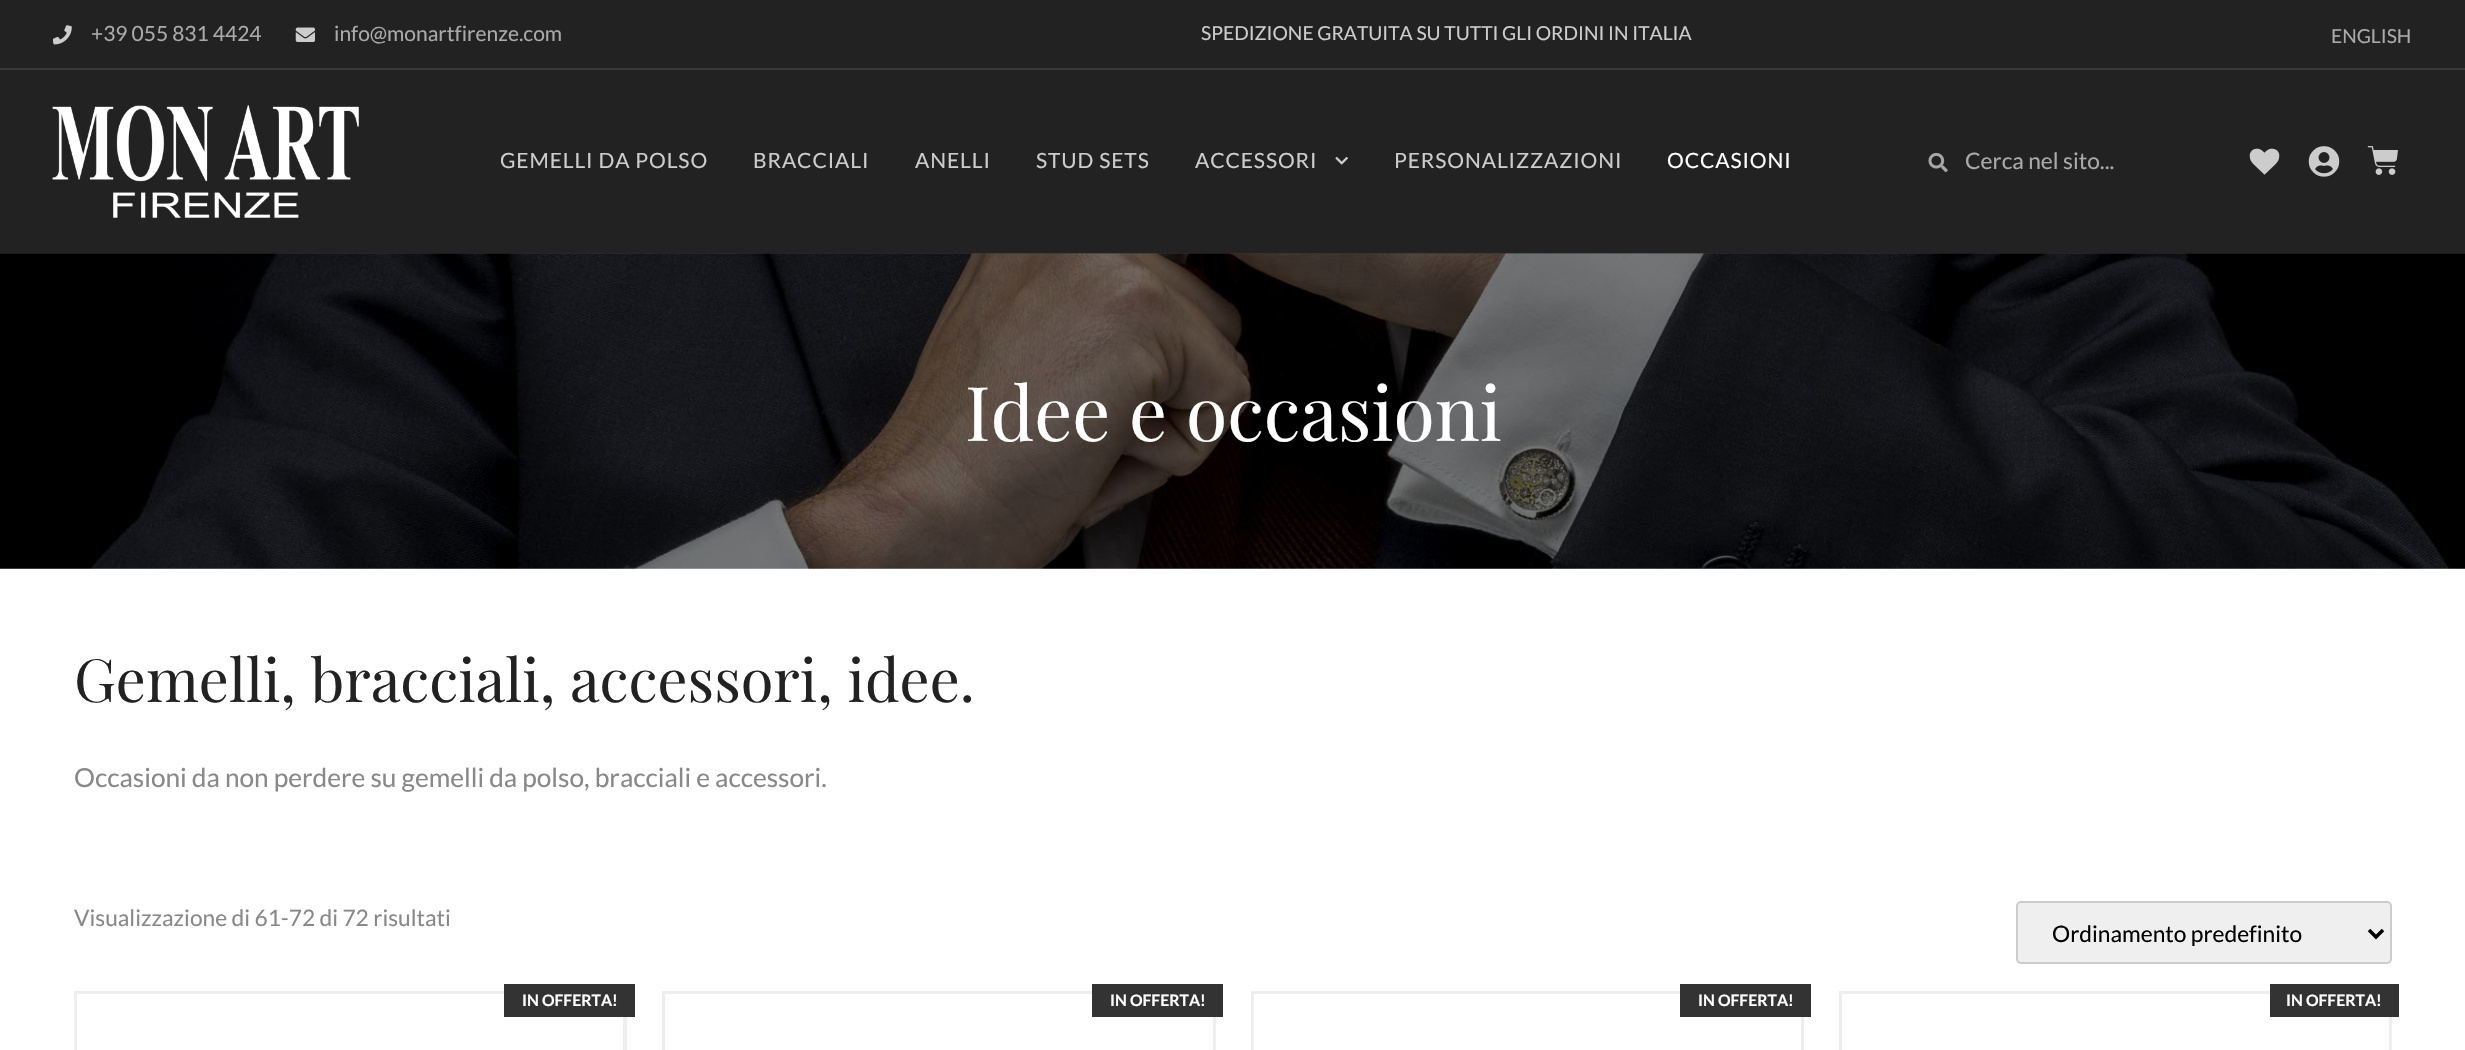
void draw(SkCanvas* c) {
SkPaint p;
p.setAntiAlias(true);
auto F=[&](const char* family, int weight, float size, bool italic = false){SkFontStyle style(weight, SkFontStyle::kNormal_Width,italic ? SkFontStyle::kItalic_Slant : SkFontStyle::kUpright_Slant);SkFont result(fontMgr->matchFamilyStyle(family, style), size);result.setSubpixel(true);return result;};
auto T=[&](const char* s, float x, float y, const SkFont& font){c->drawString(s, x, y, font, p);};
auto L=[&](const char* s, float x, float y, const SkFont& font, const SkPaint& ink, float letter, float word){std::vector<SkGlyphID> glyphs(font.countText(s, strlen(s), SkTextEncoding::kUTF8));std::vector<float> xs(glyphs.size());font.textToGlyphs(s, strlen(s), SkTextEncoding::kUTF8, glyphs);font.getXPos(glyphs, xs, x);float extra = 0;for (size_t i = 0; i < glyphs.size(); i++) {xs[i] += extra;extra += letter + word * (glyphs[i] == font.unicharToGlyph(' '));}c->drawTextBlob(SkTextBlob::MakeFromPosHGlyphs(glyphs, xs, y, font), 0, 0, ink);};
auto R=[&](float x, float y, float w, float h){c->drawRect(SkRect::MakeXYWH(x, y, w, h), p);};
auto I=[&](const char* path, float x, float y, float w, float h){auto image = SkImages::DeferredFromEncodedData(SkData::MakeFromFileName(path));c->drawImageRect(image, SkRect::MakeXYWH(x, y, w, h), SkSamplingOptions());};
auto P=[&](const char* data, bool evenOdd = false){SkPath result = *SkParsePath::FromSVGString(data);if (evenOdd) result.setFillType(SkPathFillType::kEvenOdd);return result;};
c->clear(0xffffffff);
p.setColor(0xff222222);
R(0,0,2465,68);
p.setColor(0xff383838);
R(0,68,2465,2);
I("1.png",53,25,19,20);
auto f1 = F("Lato",400,21);
p.setColor(0xffaaaaaa);
T("+39 055 831 4424",91,41,f1);
I("2.png",295,27,20,15);
T("info@monartfirenze.com",334,41,f1);
auto f2 = F("Lato",400,19.25);
p.setColor(0xffcccccc);
T("SPEDIZIONE GRATUITA SU TUTTI GLI ORDINI IN ITALIA",1201,40,f2);
p.setColor(0xffaaaaaa);
T("ENGLISH",2331,43,f2);
p.setColor(0xff222222);
R(0,70,2465,184);
I("3.png",52,105,307,113);
p.setColor(0xffcccccc);
L("GEMELLI DA POLSO",500,168,f1,p,.9,0);
L("BRACCIALI",753,168,f1,p,.9,0);
L("ANELLI",915,168,f1,p,.9,0);
L("STUD SETS",1036,168,f1,p,.9,0);
L("ACCESSORI",1195,168,f1,p,.9,0);
I("4.png",1335,157,13,8);
L("PERSONALIZZAZIONI",1394,168,f1,p,.9,0);
p.setColor(0xffffffff);
L("OCCASIONI",1667,168,f1,p,.9,0);
I("5.png",1928,152,20,21);
auto f3 = F("Lato",400,22.75);
p.setColor(0xffaaaaaa);
T("Cerca nel sito...",1965,169,f3);
I("6.png",2249,148,31,27);
I("7.png",2308,146,32,31);
I("8.png",2367,146,31,29);
I("9.png",0,253,2465,316);
auto f4 = F("Playfair Display",400,75.25);
p.setColor(0xffffffff);
T("Idee e occasioni",965,441,f4);
auto f5 = F("Playfair Display",400,59.5);
p.setColor(0xff222222);
T("Gemelli, bracciali, accessori, idee.",74,702,f5);
auto f6 = F("Lato",400,26.25);
p.setColor(0xff888888);
T("Occasioni da non perdere su gemelli da polso, bracciali e accessori.",74,787,f6);
T("Visualizzazione di 61-72 di 72 risultati",74,926,f3);
p.setColor(0xffefefef);
c->drawRoundRect(SkRect::MakeXYWH(2017,902,374,61),4,4,p);
p.setStroke(true);
p.setStrokeWidth(2);
p.setColor(0xffcccccc);
c->drawRoundRect(SkRect::MakeXYWH(2017,902,374,61),4,4,p);
p.setStrokeWidth(3.5);
p.setColor(0xff000000);
c->drawPath(P("M2369 930l7 7l7-7"),p);
p.setStroke(false);
T("Ordinamento predefinito",2052,942,f3);
p.setStroke(true);
p.setStrokeWidth(4);
p.setColor(0xffeeeeee);
c->drawRect(SkRect::MakeXYWH(76,993,549,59),p);
p.setStroke(false);
p.setColor(0xffffffff);
R(77,994,546,56);
p.setColor(0xff333333);
R(504,984,131,33);
auto f7 = F("Lato",700,15.75);
p.setColor(0xffffffff);
T("IN OFFERTA!",522,1006,f7);
p.setStroke(true);
p.setColor(0xffeeeeee);
c->drawRect(SkRect::MakeXYWH(664,993,550,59),p);
p.setStroke(false);
p.setColor(0xffffffff);
R(665,994,548,56);
p.setColor(0xff333333);
R(1092,984,131,33);
p.setColor(0xffffffff);
T("IN OFFERTA!",1110,1006,f7);
p.setStroke(true);
p.setColor(0xffeeeeee);
c->drawRect(SkRect::MakeXYWH(1253,993,549,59),p);
p.setStroke(false);
p.setColor(0xffffffff);
R(1254,994,547,56);
p.setColor(0xff333333);
R(1680,984,131,33);
p.setColor(0xffffffff);
T("IN OFFERTA!",1698,1006,f7);
p.setStroke(true);
p.setColor(0xffeeeeee);
c->drawRect(SkRect::MakeXYWH(1841,993,549,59),p);
p.setStroke(false);
p.setColor(0xffffffff);
R(1842,994,547,56);
p.setColor(0xff333333);
R(2270,984,129,33);
p.setColor(0xffffffff);
T("IN OFFERTA!",2286,1006,f7);
}
